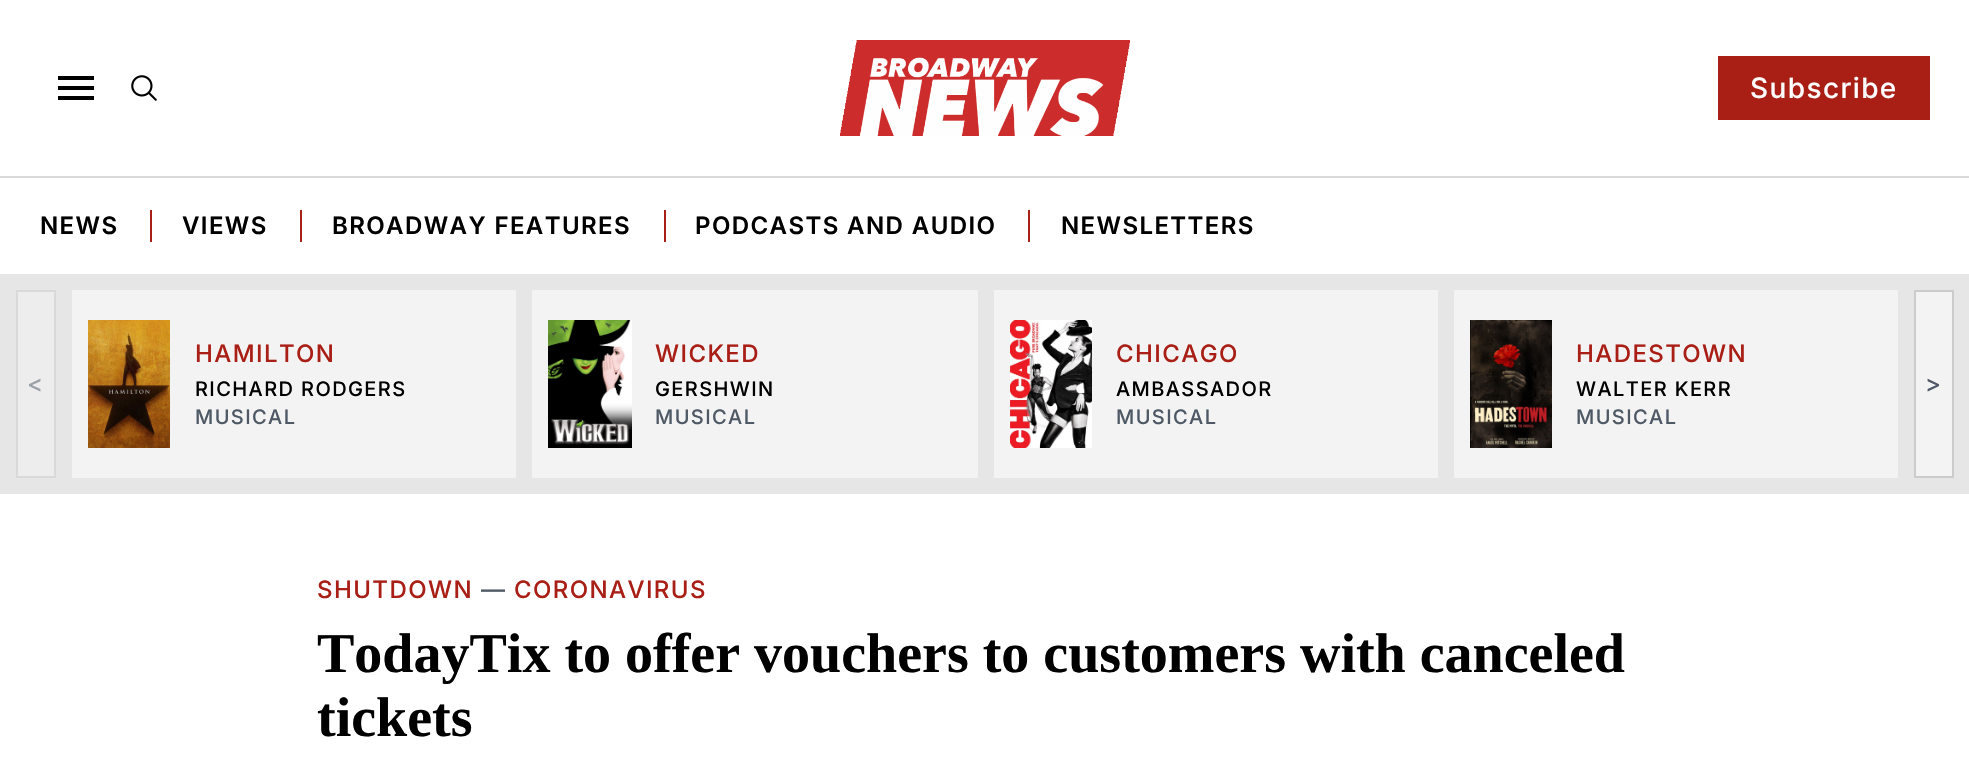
void draw(SkCanvas* c) {
SkPaint p;
p.setAntiAlias(true);
auto F=[&](const char* family, int weight, float size, bool italic = false){SkFontStyle style(weight, SkFontStyle::kNormal_Width,italic ? SkFontStyle::kItalic_Slant : SkFontStyle::kUpright_Slant);SkFont result(fontMgr->matchFamilyStyle(family, style), size);result.setSubpixel(true);return result;};
auto T=[&](const char* s, float x, float y, const SkFont& font){c->drawString(s, x, y, font, p);};
auto L=[&](const char* s, float x, float y, const SkFont& font, const SkPaint& ink, float letter, float word){std::vector<SkGlyphID> glyphs(font.countText(s, strlen(s), SkTextEncoding::kUTF8));std::vector<float> xs(glyphs.size());font.textToGlyphs(s, strlen(s), SkTextEncoding::kUTF8, glyphs);font.getXPos(glyphs, xs, x);float extra = 0;for (size_t i = 0; i < glyphs.size(); i++) {xs[i] += extra;extra += letter + word * (glyphs[i] == font.unicharToGlyph(' '));}c->drawTextBlob(SkTextBlob::MakeFromPosHGlyphs(glyphs, xs, y, font), 0, 0, ink);};
auto R=[&](float x, float y, float w, float h){c->drawRect(SkRect::MakeXYWH(x, y, w, h), p);};
auto I=[&](const char* path, float x, float y, float w, float h){auto image = SkImages::DeferredFromEncodedData(SkData::MakeFromFileName(path));c->drawImageRect(image, SkRect::MakeXYWH(x, y, w, h), SkSamplingOptions());};
auto P=[&](const char* data, bool evenOdd = false){SkPath result = *SkParsePath::FromSVGString(data);if (evenOdd) result.setFillType(SkPathFillType::kEvenOdd);return result;};
c->clear(0xffffffff);
p.setColor(0xffd9d9d9);
R(0,176,1969,2);
p.setColor(0xff000000);
c->drawPath(P("M58 100h36v-4h-36zm0-10h36v-4h-36zm0-14v4h36v-4z"),p);
I("1.png",131,75,26,26);
I("2.png",840,40,290,96);
p.setColor(0xffa91f16);
R(1718,56,212,64);
auto f1 = F("Inter",500,28);
p.setColor(0xffffffff);
L("Subscribe",1750,98,f1,p,1.4,0);
auto f2 = F("Inter",600,24);
p.setColor(0xff000000);
L("NEWS",40,234,f2,p,1.4,0);
p.setColor(0xffa91f16);
R(150,210,2,32);
p.setColor(0xff000000);
L("VIEWS",182,234,f2,p,1.4,0);
p.setColor(0xffa91f16);
R(300,210,2,32);
p.setColor(0xff000000);
L("BROADWAY FEATURES",332,234,f2,p,1.4,0);
p.setColor(0xffa91f16);
R(664,210,2,32);
p.setColor(0xff000000);
L("PODCASTS AND AUDIO",695,234,f2,p,1.4,0);
p.setColor(0xffa91f16);
R(1028,210,2,32);
p.setColor(0xff000000);
L("NEWSLETTERS",1061,234,f2,p,1.4,0);
p.setColor(0xffe6e6e6);
R(0,274,1969,220);
p.setColor(0xffededed);
c->drawRect(SkRect::MakeXYWH(17,291,38,186),p);
p.setStroke(true);
p.setStrokeWidth(2);
p.setColor(0xffd9d9d9);
c->drawRect(SkRect::MakeXYWH(17,291,38,186),p);
auto f3 = F("Inter",500,24);
p.setStroke(false);
p.setColor(0xff9aa0a6);
L("<",27,392,f3,p,1.4,0);
p.setColor(0xfff3f3f3);
R(72,290,444,188);
I("3.png",88,320,82,128);
p.setColor(0xffa91f16);
L("HAMILTON",195,362,f3,p,1.4,0);
auto f4 = F("Inter",500,20);
p.setColor(0xff000000);
L("RICHARD RODGERS",195,396,f4,p,1.4,0);
p.setColor(0xff4e5965);
L("MUSICAL",195,424,f4,p,1.4,0);
p.setColor(0xfff3f3f3);
R(532,290,446,188);
I("4.png",548,320,84,128);
p.setColor(0xffa91f16);
L("WICKED",655,362,f3,p,1.4,0);
p.setColor(0xff000000);
L("GERSHWIN",655,396,f4,p,1.4,0);
p.setColor(0xff4e5965);
L("MUSICAL",655,424,f4,p,1.4,0);
p.setColor(0xfff3f3f3);
R(994,290,444,188);
I("5.png",1010,320,82,128);
p.setColor(0xffa91f16);
L("CHICAGO",1116,362,f3,p,1.4,0);
p.setColor(0xff000000);
L("AMBASSADOR",1116,396,f4,p,1.4,0);
p.setColor(0xff4e5965);
L("MUSICAL",1116,424,f4,p,1.4,0);
p.setColor(0xfff3f3f3);
R(1454,290,444,188);
I("6.png",1470,320,82,128);
p.setColor(0xffa91f16);
L("HADESTOWN",1576,362,f3,p,1.4,0);
p.setColor(0xff000000);
L("WALTER KERR",1576,396,f4,p,1.4,0);
p.setColor(0xff4e5965);
L("MUSICAL",1576,424,f4,p,1.4,0);
p.setColor(0xfff3f3f3);
c->drawRect(SkRect::MakeXYWH(1915,291,38,186),p);
p.setStroke(true);
p.setColor(0xffcccccc);
c->drawRect(SkRect::MakeXYWH(1915,291,38,186),p);
p.setStroke(false);
p.setColor(0xff4e5965);
L(">",1925,392,f3,p,1.4,0);
p.setColor(0xffa91f16);
L("SHUTDOWN",317,598,f3,p,1.4,0);
p.setColor(0xff4e5965);
L("—",481,598,f3,p,1.4,0);
p.setColor(0xffa91f16);
L("CORONAVIRUS",514,598,f3,p,1.4,0);
auto f5 = F("Liberation Serif",700,56);
p.setColor(0xff000000);
T("TodayTix to offer vouchers to customers with canceled",317,672,f5);
T("tickets",317,736,f5);
}
